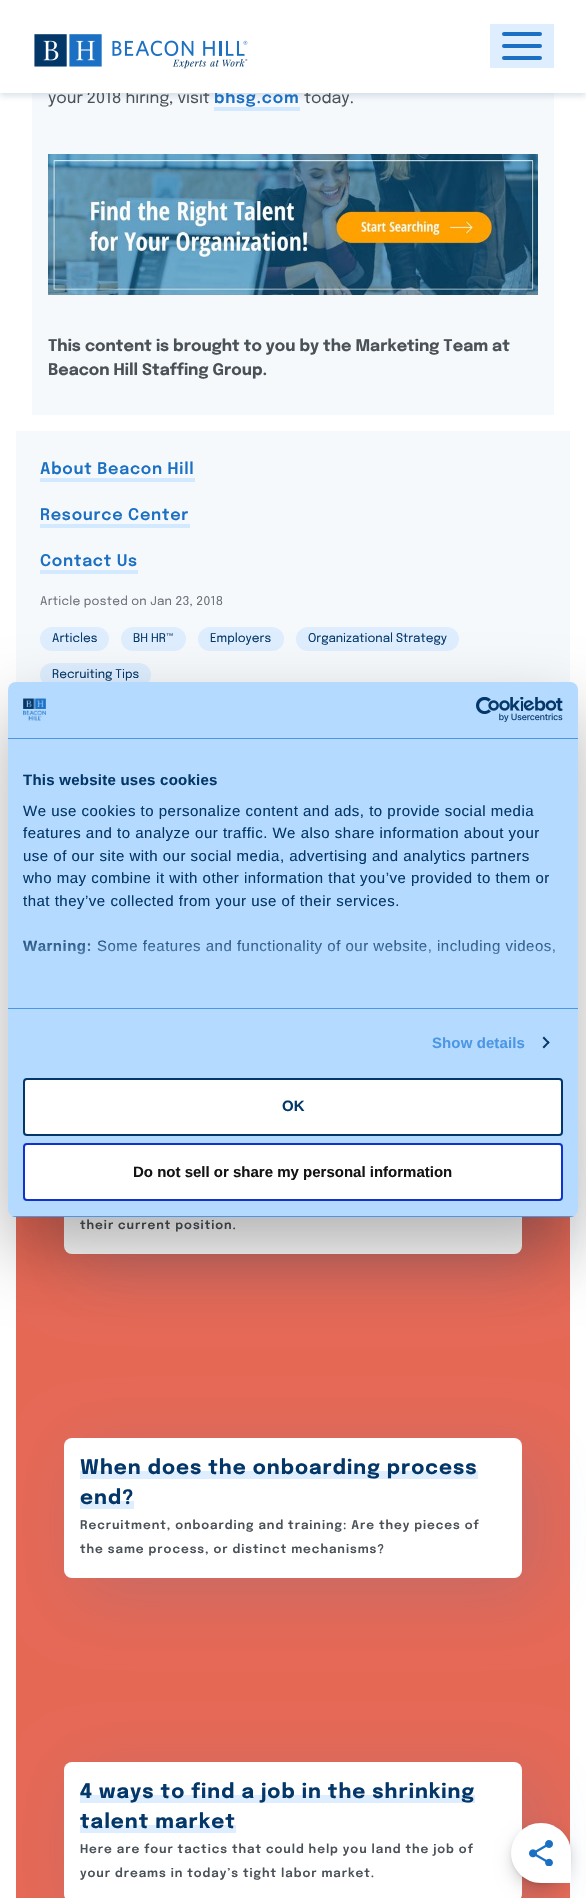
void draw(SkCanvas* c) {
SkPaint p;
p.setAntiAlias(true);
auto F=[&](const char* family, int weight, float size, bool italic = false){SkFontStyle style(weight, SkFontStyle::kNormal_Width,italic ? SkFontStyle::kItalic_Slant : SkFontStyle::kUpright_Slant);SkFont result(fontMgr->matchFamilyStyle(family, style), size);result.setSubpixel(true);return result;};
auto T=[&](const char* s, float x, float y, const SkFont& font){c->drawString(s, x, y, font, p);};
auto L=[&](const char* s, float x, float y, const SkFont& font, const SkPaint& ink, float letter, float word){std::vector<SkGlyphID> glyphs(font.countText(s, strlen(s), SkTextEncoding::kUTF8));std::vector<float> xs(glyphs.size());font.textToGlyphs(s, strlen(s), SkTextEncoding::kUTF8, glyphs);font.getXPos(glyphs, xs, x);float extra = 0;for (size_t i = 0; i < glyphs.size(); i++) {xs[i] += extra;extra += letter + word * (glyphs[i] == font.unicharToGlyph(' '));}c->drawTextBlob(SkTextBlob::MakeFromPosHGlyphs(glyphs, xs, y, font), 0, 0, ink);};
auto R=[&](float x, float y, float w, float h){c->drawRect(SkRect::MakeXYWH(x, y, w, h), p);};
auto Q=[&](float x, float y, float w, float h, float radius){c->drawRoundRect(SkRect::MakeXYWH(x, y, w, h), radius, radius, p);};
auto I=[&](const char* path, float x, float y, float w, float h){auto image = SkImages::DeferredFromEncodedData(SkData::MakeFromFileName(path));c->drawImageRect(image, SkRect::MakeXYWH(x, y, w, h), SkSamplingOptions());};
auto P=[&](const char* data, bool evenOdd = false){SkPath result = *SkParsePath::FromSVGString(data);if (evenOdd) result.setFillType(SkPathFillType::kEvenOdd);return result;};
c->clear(0xffffffff);
p.setColor(0xfff6f9fc);
R(32,93,522,322);
p.setColor(0x26043769);
p.setMaskFilter(SkMaskFilter::MakeBlur(kNormal_SkBlurStyle, 3));
c->drawRect(SkRect::MakeXYWH(0,3,586,93),p);
p.setMaskFilter(nullptr);
auto f1 = F("Epilogue",400,16);
p.setColor(0xff4a5157);
T("your 2018 hiring, visit",48,103,f1);
auto f2 = F("Epilogue",600,16);
p.setColor(0xff1c70c4);
L("bhsg.com",214,103,f2,p,.75,0);
p.setColor(0xff4a5157);
T("today.",304,103,f1);
p.setColor(0xffffffff);
R(0,0,586,93);
I("1.png",34,34,214,35);
p.setColor(0xffdeeeff);
R(490,24,64,44);
p.setColor(0xff1c70c4);
Q(502,32,40,4,2);
Q(502,44,40,4,2);
Q(502,56,40,4,2);
p.setColor(0xffd3e9ff);
R(214,107,86,4);
I("2.png",48,154,490,141);
auto f3 = F("Epilogue",700,16);
p.setColor(0xff4a5157);
T("This content is brought to you by the Marketing Team at",48,351,f3);
T("Beacon Hill Staffing Group.",48,375,f3);
p.setColor(0xfff6f9fc);
R(16,431,554,251);
p.setColor(0xff1c70c4);
L("About Beacon Hill",40,474,f2,p,.75,0);
p.setColor(0xffd3e9ff);
R(40,478,155,4);
p.setColor(0xff1c70c4);
L("Resource Center",40,520,f2,p,.75,0);
p.setColor(0xffd3e9ff);
R(40,524,150,4);
p.setColor(0xff1c70c4);
L("Contact Us",40,566,f2,p,.75,0);
p.setColor(0xffd3e9ff);
R(40,570,98,4);
auto f4 = F("Epilogue",400,12);
p.setColor(0xff6a7178);
L("Article posted on Jan 23, 2018",40,605,f4,p,.25,0);
p.setColor(0xffdeeeff);
Q(40,627,69,24,12);
p.setColor(0xff043769);
T("Articles",52,642,f4);
p.setColor(0xffdeeeff);
Q(121,627,65,24,12);
p.setColor(0xff043769);
T("BH HR™",133,642,f4);
p.setColor(0xffdeeeff);
Q(198,627,86,24,12);
p.setColor(0xff043769);
T("Employers",210,642,f4);
p.setColor(0xffdeeeff);
Q(296,627,163,24,12);
p.setColor(0xff043769);
T("Organizational Strategy",308,642,f4);
p.setColor(0xffdeeeff);
Q(40,663,111,24,12);
p.setColor(0xff043769);
T("Recruiting Tips",52,678,f4);
p.setColor(0xffe56855);
R(16,1217,554,681);
p.setColor(0x261c70c4);
p.setMaskFilter(SkMaskFilter::MakeBlur(kNormal_SkBlurStyle, 32));
c->drawRoundRect(SkRect::MakeXYWH(80,1136,458,134),8,8,p);
p.setMaskFilter(nullptr);
p.setColor(0xffffffff);
Q(64,1120,458,134,8);
auto f5 = F("Epilogue",600,12);
p.setColor(0xff4a5157);
L("their current position.",80,1229,f5,p,.95,0);
p.setColor(0x261c70c4);
p.setMaskFilter(SkMaskFilter::MakeBlur(kNormal_SkBlurStyle, 32));
c->drawRoundRect(SkRect::MakeXYWH(80,1454,458,140),8,8,p);
p.setMaskFilter(nullptr);
p.setColor(0xffffffff);
Q(64,1438,458,140,8);
{
const SkColor colors[] = {0xffffffff,0xffffffff,0xffdeeeff,0xffdeeeff};
const float stops[] = {0,.6,.6,1};
const SkPoint ends[] = {{279,1458}, {279,1479}};
p.setShader(SkGradientShader::MakeLinear(ends, colors, stops, 4, SkTileMode::kClamp));
p.setAlpha(255);
}
R(80,1471,398,8);
auto f6 = F("Epilogue",700,20);
p.setShader(nullptr);
p.setColor(0xff043769);
L("When does the onboarding process",80,1474,f6,p,1,0);
{
const SkColor colors[] = {0xffffffff,0xffffffff,0xffdeeeff,0xffdeeeff};
const float stops[] = {0,.6,.6,1};
const SkPoint ends[] = {{107,1488}, {107,1509}};
p.setShader(SkGradientShader::MakeLinear(ends, colors, stops, 4, SkTileMode::kClamp));
p.setAlpha(255);
}
R(80,1501,54,8);
p.setShader(nullptr);
p.setColor(0xff043769);
L("end?",80,1504,f6,p,1,0);
p.setColor(0xff4a5157);
L("Recruitment, onboarding and training: Are they pieces of",80,1529,f5,p,.95,0);
L("the same process, or distinct mechanisms?",80,1553,f5,p,.95,0);
p.setColor(0x261c70c4);
p.setMaskFilter(SkMaskFilter::MakeBlur(kNormal_SkBlurStyle, 32));
c->drawRoundRect(SkRect::MakeXYWH(80,1778,458,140),8,8,p);
p.setMaskFilter(nullptr);
p.setColor(0xffffffff);
Q(64,1762,458,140,8);
{
const SkColor colors[] = {0xffffffff,0xffffffff,0xffdeeeff,0xffdeeeff};
const float stops[] = {0,.6,.6,1};
const SkPoint ends[] = {{278,1782}, {278,1803}};
p.setShader(SkGradientShader::MakeLinear(ends, colors, stops, 4, SkTileMode::kClamp));
p.setAlpha(255);
}
R(80,1795,395,8);
p.setShader(nullptr);
p.setColor(0xff043769);
L("4 ways to find a job in the shrinking",80,1798,f6,p,1,0);
{
const SkColor colors[] = {0xffffffff,0xffffffff,0xffdeeeff,0xffdeeeff};
const float stops[] = {0,.6,.6,1};
const SkPoint ends[] = {{158,1812}, {158,1833}};
p.setShader(SkGradientShader::MakeLinear(ends, colors, stops, 4, SkTileMode::kClamp));
p.setAlpha(255);
}
R(80,1825,156,8);
p.setShader(nullptr);
p.setColor(0xff043769);
L("talent market",80,1828,f6,p,1,0);
p.setColor(0xff4a5157);
L("Here are four tactics that could help you land the job of",80,1853,f5,p,.95,0);
L("your dreams in today’s tight labor market.",80,1877,f5,p,.95,0);
p.setColor(0x24000000);
p.setMaskFilter(SkMaskFilter::MakeBlur(kNormal_SkBlurStyle, 8));
c->drawRoundRect(SkRect::MakeXYWH(511,1831,60,60),30,30,p);
p.setMaskFilter(nullptr);
p.setColor(0x14000000);
p.setMaskFilter(SkMaskFilter::MakeBlur(kNormal_SkBlurStyle, 2));
c->drawRoundRect(SkRect::MakeXYWH(511,1825,60,60),30,30,p);
p.setMaskFilter(nullptr);
p.setColor(0x0f000000);
p.setMaskFilter(SkMaskFilter::MakeBlur(kNormal_SkBlurStyle, .5));
c->drawRoundRect(SkRect::MakeXYWH(511,1824,60,60),30,30,p);
p.setMaskFilter(nullptr);
p.setColor(0xffffffff);
c->drawPath(P("M541 1823c16.5 0 30 13.5 30 30v30h-30c-16.5 0-30-13.5-30-30c0-16.5 13.5-30 30-30z"),p);
I("3.png",529,1840,24,26);
p.setColor(0x4d000000);
p.setMaskFilter(SkMaskFilter::MakeBlur(kNormal_SkBlurStyle, 34));
c->drawRoundRect(SkRect::MakeXYWH(8,714,570,535),8,8,p);
p.setMaskFilter(nullptr);
p.setColor(0xffb5daff);
Q(8,682,570,535,8);
p.setColor(0xff4b97e5);
R(8,738,570,1);
I("4.png",23,698,23,23);
I("5.png",476,697,87,25);
R(8,1008,570,1);
auto f7 = F("Liberation Sans",700,15);
p.setColor(0xff043769);
L("This website uses cookies",23,785,f7,p,.25,0);
auto f8 = F("Liberation Sans",400,15);
L("We use cookies to personalize content and ads, to provide social media",23,816,f8,p,.5,0);
L("features and to analyze our traffic. We also share information about your",23,838,f8,p,.5,0);
L("use of our site with our social media, advertising and analytics partners",23,861,f8,p,.5,0);
L("who may combine it with other information that you’ve provided to them or",23,883,f8,p,.5,0);
L("that they’ve collected from your use of their services.",23,906,f8,p,.5,0);
L("Warning:",23,951,f7,p,.5,0);
L("Some features and functionality of our website, including videos,",97,951,f8,p,.5,0);
{
const SkColor colors[] = {0xffb5daff,0xccb5daff,0x00b5daff};
const float stops[] = {0,.5,1};
const SkPoint ends[] = {{287,1008}, {287,933}};
p.setShader(SkGradientShader::MakeLinear(ends, colors, stops, 3, SkTileMode::kClamp));
p.setAlpha(255);
}
R(23,940,532,15);
p.setShader(nullptr);
p.setColor(0xff4b97e5);
L("Show details",432,1048,f7,p,.1,0);
p.setColor(0xff043769);
c->drawPath(P("M544 1036.5l5.5 6l-1 1.5l-6-6z"),p);
c->drawPath(P("M548.5 1041l1 1.5l-5.5 6l-1.5-1.5z"),p);
c->save();
c->clipPath(P("M16 682h554c4.5 0 8 3.5 8 8v519c0 4.5-3.5 8-8 8h-554c-4.5 0-8-3.5-8-8v-519c0-4.5 3.5-8 8-8z"),true);
p.setColor(0xff4b97e5);
R(8,1216,570,1);
c->restore();
p.setColor(0xffffffff);
c->drawRoundRect(SkRect::MakeXYWH(24,1079,538,56),3,3,p);
p.setStroke(true);
p.setStrokeWidth(2);
p.setColor(0xff043769);
c->drawRoundRect(SkRect::MakeXYWH(24,1079,538,56),3,3,p);
p.setStroke(false);
T("OK",282,1111,f7);
p.setColor(0xffffffff);
c->drawRoundRect(SkRect::MakeXYWH(24,1144,538,56),3,3,p);
p.setStroke(true);
p.setColor(0xff1032cf);
c->drawRoundRect(SkRect::MakeXYWH(24,1144,538,56),3,3,p);
p.setStroke(false);
p.setColor(0xff141414);
T("Do not sell or share my personal information",133,1177,f7);
}
